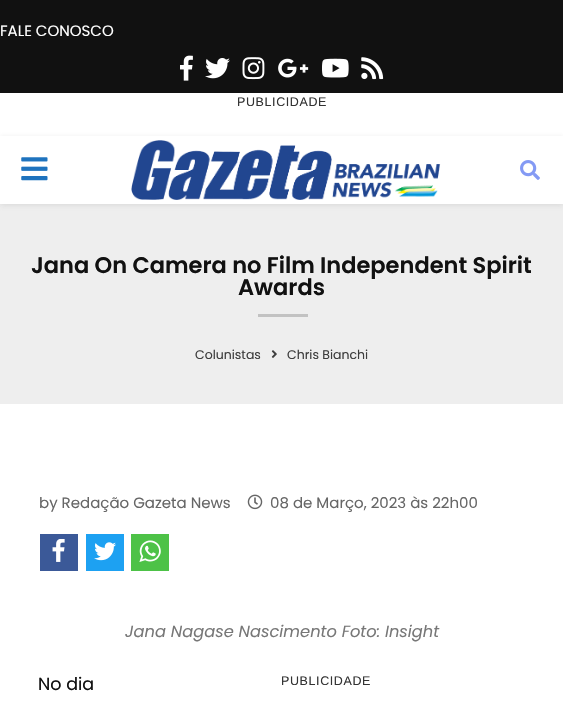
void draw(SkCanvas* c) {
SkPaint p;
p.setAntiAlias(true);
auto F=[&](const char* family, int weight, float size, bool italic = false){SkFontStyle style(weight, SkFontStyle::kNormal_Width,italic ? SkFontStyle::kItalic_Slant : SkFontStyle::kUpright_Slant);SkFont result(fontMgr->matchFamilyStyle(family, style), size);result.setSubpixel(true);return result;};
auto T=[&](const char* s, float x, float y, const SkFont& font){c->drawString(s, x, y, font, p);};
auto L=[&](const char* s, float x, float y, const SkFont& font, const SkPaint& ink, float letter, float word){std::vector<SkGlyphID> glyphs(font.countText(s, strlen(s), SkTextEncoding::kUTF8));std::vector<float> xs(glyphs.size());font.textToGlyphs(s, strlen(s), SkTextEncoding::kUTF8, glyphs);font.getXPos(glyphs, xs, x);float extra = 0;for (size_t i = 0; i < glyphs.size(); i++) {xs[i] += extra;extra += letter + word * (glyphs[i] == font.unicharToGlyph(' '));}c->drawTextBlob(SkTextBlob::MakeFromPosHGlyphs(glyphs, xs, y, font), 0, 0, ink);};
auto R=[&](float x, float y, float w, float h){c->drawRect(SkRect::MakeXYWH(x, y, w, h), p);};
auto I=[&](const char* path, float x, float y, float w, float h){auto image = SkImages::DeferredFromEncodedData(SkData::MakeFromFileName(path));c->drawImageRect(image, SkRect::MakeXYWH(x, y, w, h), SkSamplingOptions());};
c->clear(0xffffffff);
p.setColor(0xff111111);
R(0,0,563,93);
auto f1 = F("Poppins",400,15);
p.setColor(0xffffffff);
T("FALE CONOSCO",0,36,f1);
I("1.png",180,55,13,26);
I("2.png",205,58,25,21);
I("3.png",242,57,23,23);
I("4.png",278,58,31,20);
I("5.png",322,58,27,20);
I("6.png",361,57,23,23);
auto f2 = F("Liberation Sans",400,12.5);
p.setColor(0xff333333);
L("PUBLICIDADE",237,106,f2,p,.6,0);
p.setColor(0xffeeeeee);
R(0,204,563,200);
p.setColor(0x75bebebe);
p.setMaskFilter(SkMaskFilter::MakeBlur(kNormal_SkBlurStyle, 3));
c->drawRect(SkRect::MakeXYWH(0,138,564,67),p);
p.setMaskFilter(nullptr);
p.setColor(0xffffffff);
R(0,136,563,68);
I("7.png",21,157,27,24);
I("8.png",131,140,310,60);
I("9.png",520,160,20,20);
auto f3 = F("Poppins",600,22.5);
p.setColor(0xff111111);
T("Jana On Camera no Film Independent Spirit",31,273,f3);
T("Awards",238,295,f3);
p.setColor(0xffc2c2c2);
R(258,314,50,3);
auto f4 = F("Poppins",400,12.5);
p.setColor(0xff3d3d3d);
T("Colunistas",195,359,f4);
I("10.png",271,350,6,8);
T("Chris Bianchi",287,359,f4);
p.setColor(0xff666666);
T("by Redação Gazeta News",39,508,f1);
I("11.png",247,494,16,16);
T("08 de Março, 2023 às 22h00",270,508,f1);
p.setColor(0xff3b5998);
R(40,534,38,37);
I("12.png",52,539,13,23);
p.setColor(0xff1da1f2);
R(86,534,38,37);
I("13.png",94,542,22,19);
p.setColor(0xff4dc247);
R(131,534,38,37);
I("14.png",139,540,22,22);
auto f5 = F("Poppins",400,16.25,true);
p.setColor(0xff777777);
T("Jana Nagase Nascimento Foto: Insight",125,637,f5);
auto f6 = F("Poppins",400,17.5);
p.setColor(0xff111111);
T("No dia",38,690,f6);
p.setColor(0xff333333);
L("PUBLICIDADE",281,685,f2,p,.6,0);
}
